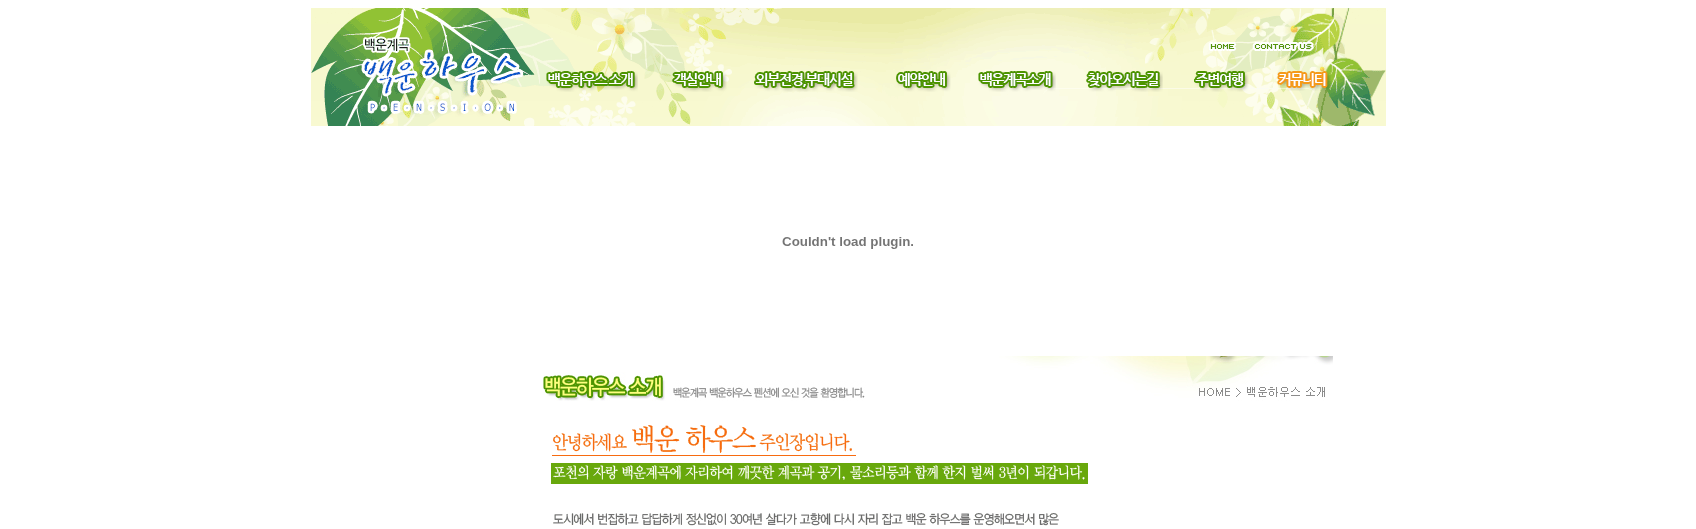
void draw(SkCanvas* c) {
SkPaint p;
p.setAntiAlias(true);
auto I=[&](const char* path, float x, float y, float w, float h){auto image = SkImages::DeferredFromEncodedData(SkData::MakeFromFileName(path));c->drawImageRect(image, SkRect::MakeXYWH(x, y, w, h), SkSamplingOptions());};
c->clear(0xffffffff);
I("1.png",311,8,1075,118);
I("2.png",546,71,92,21);
I("3.png",672,71,55,21);
I("4.png",754,71,104,21);
I("5.png",896,71,55,21);
I("6.png",978,71,78,21);
I("7.png",1086,71,77,21);
I("8.png",1194,71,55,21);
I("9.png",1277,71,54,20);
I("10.png",782,237,131,12);
I("11.png",543,356,790,45);
I("12.png",551,425,537,101);
}
